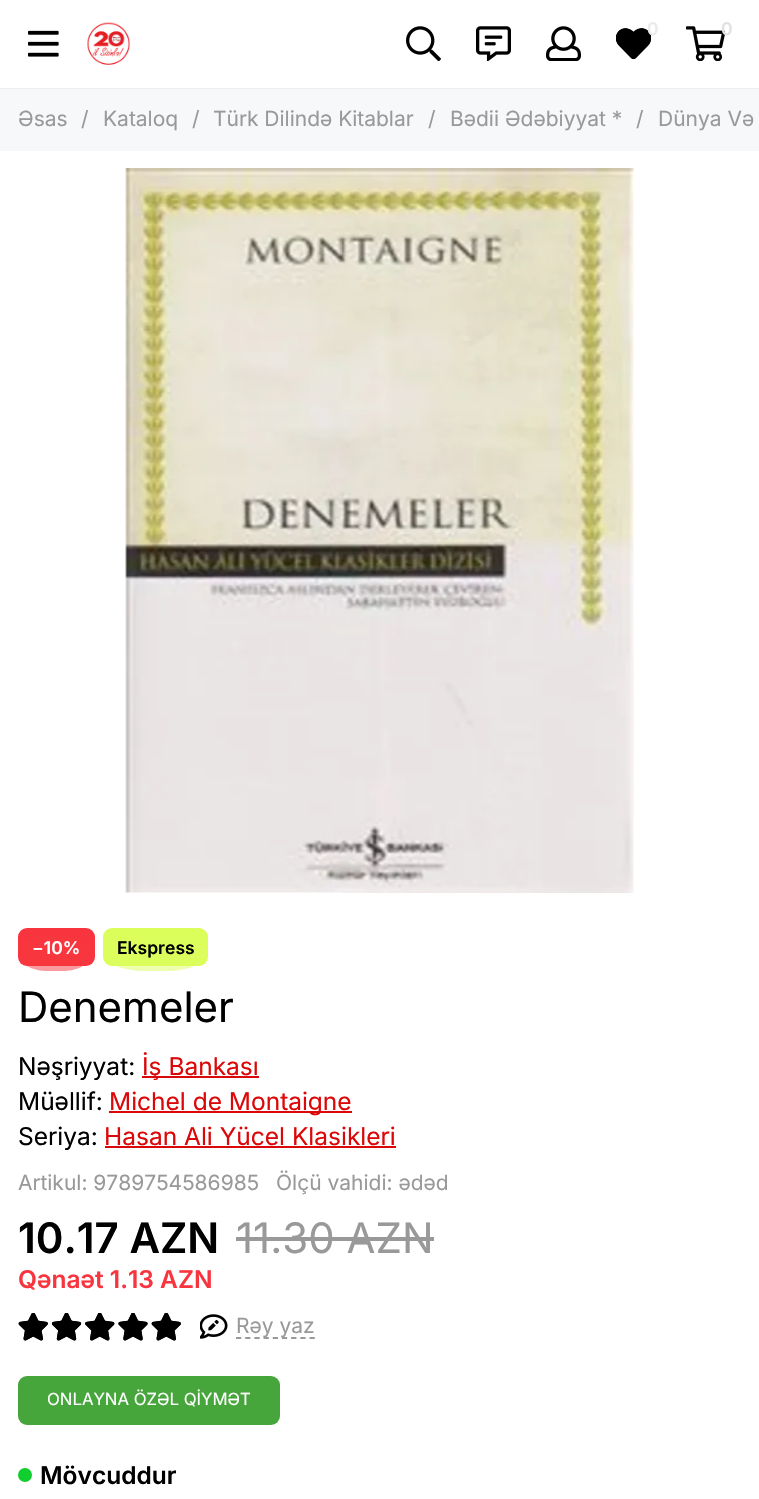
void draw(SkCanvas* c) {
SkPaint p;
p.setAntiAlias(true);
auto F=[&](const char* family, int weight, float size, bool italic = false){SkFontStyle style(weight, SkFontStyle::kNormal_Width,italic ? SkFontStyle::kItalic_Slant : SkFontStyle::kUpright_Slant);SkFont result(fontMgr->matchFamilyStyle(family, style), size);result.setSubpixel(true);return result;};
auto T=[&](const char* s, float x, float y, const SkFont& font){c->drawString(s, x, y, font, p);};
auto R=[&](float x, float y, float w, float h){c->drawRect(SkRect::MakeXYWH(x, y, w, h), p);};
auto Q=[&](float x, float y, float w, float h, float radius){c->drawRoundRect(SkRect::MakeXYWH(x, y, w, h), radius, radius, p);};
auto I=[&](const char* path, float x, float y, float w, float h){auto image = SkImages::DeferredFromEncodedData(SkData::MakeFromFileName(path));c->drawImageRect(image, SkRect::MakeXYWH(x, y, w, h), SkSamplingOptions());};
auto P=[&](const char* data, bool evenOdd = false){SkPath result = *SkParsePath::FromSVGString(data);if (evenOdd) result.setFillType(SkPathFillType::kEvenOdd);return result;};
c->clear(0xffffffff);
p.setColor(0xffeeeeee);
c->drawPath(P("M0 88v1h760v-87v86z"),p);
I("1.png",28,30,31,27);
I("2.png",87,22,43,43);
I("3.png",406,26,35,35);
I("4.png",476,26,35,35);
I("5.png",546,26,35,35);
I("6.png",616,28,35,32);
auto f1 = F("Inter",600,17.5);
p.setColor(0xffebebeb);
T("0",647,35,f1);
I("7.png",686,26,39,35);
p.setColor(0xffe2e2e2);
T("0",721,35,f1);
p.setColor(0xfff7f8fa);
R(0,89,759,62);
auto f2 = F("Inter",400,21);
p.setColor(0xff999999);
T("Əsas",18,126,f2);
T("/",81,126,f2);
T("Kataloq",103,126,f2);
T("/",192,126,f2);
T("Türk Dilində Kitablar",213,126,f2);
T("/",428,126,f2);
T("Bədii Ədəbiyyat *",450,126,f2);
T("/",636,126,f2);
T("Dünya Və",658,126,f2);
I("8.png",125,168,509,725);
p.setColor(0xfff8353e);
Q(18,928,77,38,9);
p.setColor(0x80f8353e);
c->drawPath(P("M48 936h14c15 0 27 7 27 14v7c0 8-12 14-27 14h-14c-15 0-27-6-27-14v-7c0-7 12-14 27-14z"),p);
p.setColor(0xffffffff);
T("−10%",32,954,f1);
p.setColor(0xffdcfe5b);
Q(103,928,105,38,9);
p.setColor(0x80dcfe5b);
c->drawPath(P("M146 936h19c21 0 38 7 38 14v7c0 8-17 14-38 14h-19c-21 0-38-6-38-14v-7c0-7 17-14 38-14z"),p);
p.setColor(0xff000000);
T("Ekspress",117,954,f1);
auto f3 = F("Inter",400,42);
T("Denemeler",18,1022,f3);
auto f4 = F("Inter",400,24.5);
T("Nəşriyyat:",18,1075,f4);
p.setColor(0xffdc0708);
R(142,1076,117,2);
T("İş Bankası",142,1075,f4);
p.setColor(0xff000000);
T("Müəllif:",18,1110,f4);
p.setColor(0xffdc0708);
R(109,1111,243,2);
T("Michel de Montaigne",109,1110,f4);
p.setColor(0xff000000);
T("Seriya:",18,1145,f4);
p.setColor(0xffdc0708);
T("Hasan Ali Yücel Klasikleri",104,1145,f4);
R(105,1146,291,2);
p.setColor(0xff999999);
T("Artikul: 9789754586985",18,1190,f2);
T("Ölçü vahidi: ədəd",276,1190,f2);
auto f5 = F("Inter",600,42);
p.setColor(0xff000000);
T("10.17 AZN",18,1253,f5);
p.setColor(0xff999999);
T("11.30 AZN",236,1253,f3);
R(236,1237,198,4);
auto f6 = F("Inter",600,24.5);
p.setColor(0xfff8353e);
T("Qənaət 1.13 AZN",18,1288,f6);
I("9.png",18,1313,30,28);
I("10.png",51,1313,31,28);
I("11.png",85,1313,30,28);
I("12.png",118,1313,30,28);
I("9.png",151,1313,30,28);
I("13.png",200,1314,28,25);
p.setStroke(true);
p.setStrokeWidth(1.8);
p.setColor(0xff999999);
p.setPathEffect(SkDashPathEffect::Make({{5.25f,3.94f}}, 0));
c->drawPath(P("M236 1338h79"),p);
p.setPathEffect(nullptr);
p.setStroke(false);
T("Rəy yaz",236,1333,f2);
p.setColor(0xff46a53b);
Q(18,1376,262,49,9);
auto f7 = F("Inter",400,16.75);
p.setColor(0xffffffff);
T("ONLAYNA ÖZƏL QİYMƏT",47,1405,f7);
p.setColor(0xff0fce2d);
c->drawCircle(25,1475,7,p);
p.setColor(0xff000000);
T("Mövcuddur",40,1484,f6);
}
